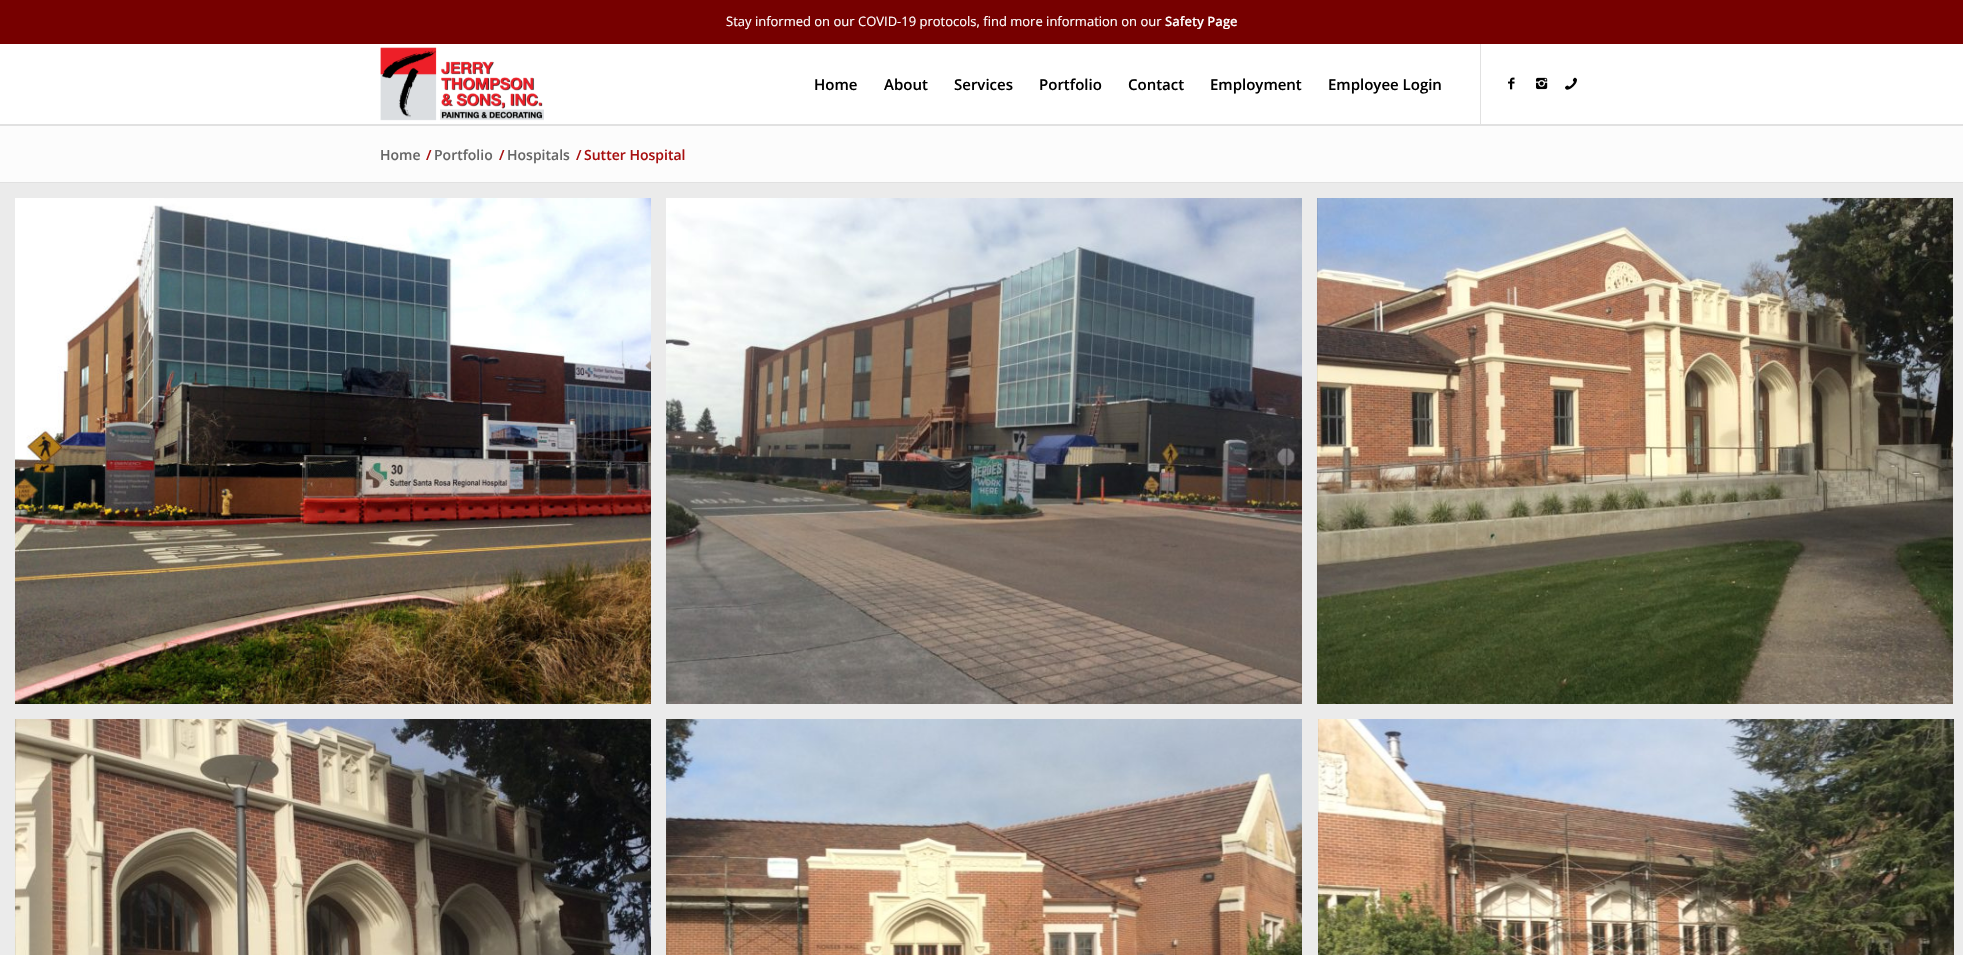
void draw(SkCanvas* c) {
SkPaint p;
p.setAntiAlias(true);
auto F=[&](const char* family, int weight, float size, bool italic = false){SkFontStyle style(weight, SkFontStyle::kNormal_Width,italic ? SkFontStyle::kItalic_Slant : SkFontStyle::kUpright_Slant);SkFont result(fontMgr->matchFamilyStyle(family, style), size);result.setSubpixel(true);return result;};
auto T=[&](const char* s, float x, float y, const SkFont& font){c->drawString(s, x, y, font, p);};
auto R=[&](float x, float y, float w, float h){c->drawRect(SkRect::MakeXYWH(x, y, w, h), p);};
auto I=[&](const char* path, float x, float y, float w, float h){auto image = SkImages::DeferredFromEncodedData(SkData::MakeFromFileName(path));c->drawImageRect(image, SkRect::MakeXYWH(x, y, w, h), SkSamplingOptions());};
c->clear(0xffffffff);
p.setColor(0xff770000);
R(0,0,1963,44);
auto f1 = F("Open Sans",400,13);
p.setColor(0xffffffff);
T("Stay informed on our COVID-19 protocols, find more information on our",726,26,f1);
auto f2 = F("Open Sans",600,13);
T("Safety Page",1165,26,f2);
I("1.png",380,47,164,74);
p.setColor(0xffe1e1e1);
R(1480,44,1,80);
auto f3 = F("Open Sans",600,15);
p.setColor(0xff000000);
T("Home",814,90,f3);
T("About",884,90,f3);
T("Services",954,90,f3);
T("Portfolio",1039,90,f3);
T("Contact",1128,90,f3);
T("Employment",1210,90,f3);
T("Employee Login",1328,90,f3);
I("2.png",1508,77,7,13);
I("3.png",1536,77,12,13);
I("4.png",1565,77,12,13);
p.setColor(0xfffcfcfc);
R(0,126,1963,56);
p.setColor(0xffe1e1e1);
R(0,124,1963,2);
auto f4 = F("Open Sans",600,14);
p.setColor(0xff666666);
T("Home",380,160,f4);
p.setColor(0xffa81010);
T("/",426,160,f4);
p.setColor(0xff666666);
T("Portfolio",434,160,f4);
p.setColor(0xffa81010);
T("/",499,160,f4);
p.setColor(0xff666666);
T("Hospitals",507,160,f4);
p.setColor(0xffa81010);
T("/",576,160,f4);
T("Sutter Hospital",584,160,f4);
p.setColor(0xffe1e1e1);
R(0,182,1963,1);
p.setColor(0xffebebeb);
R(0,183,1963,772);
I("5.png",15,198,636,506);
I("6.png",666,198,636,506);
I("7.png",1317,198,636,506);
I("8.png",15,719,636,236);
I("9.png",666,719,636,236);
I("10.png",1318,719,636,236);
}
